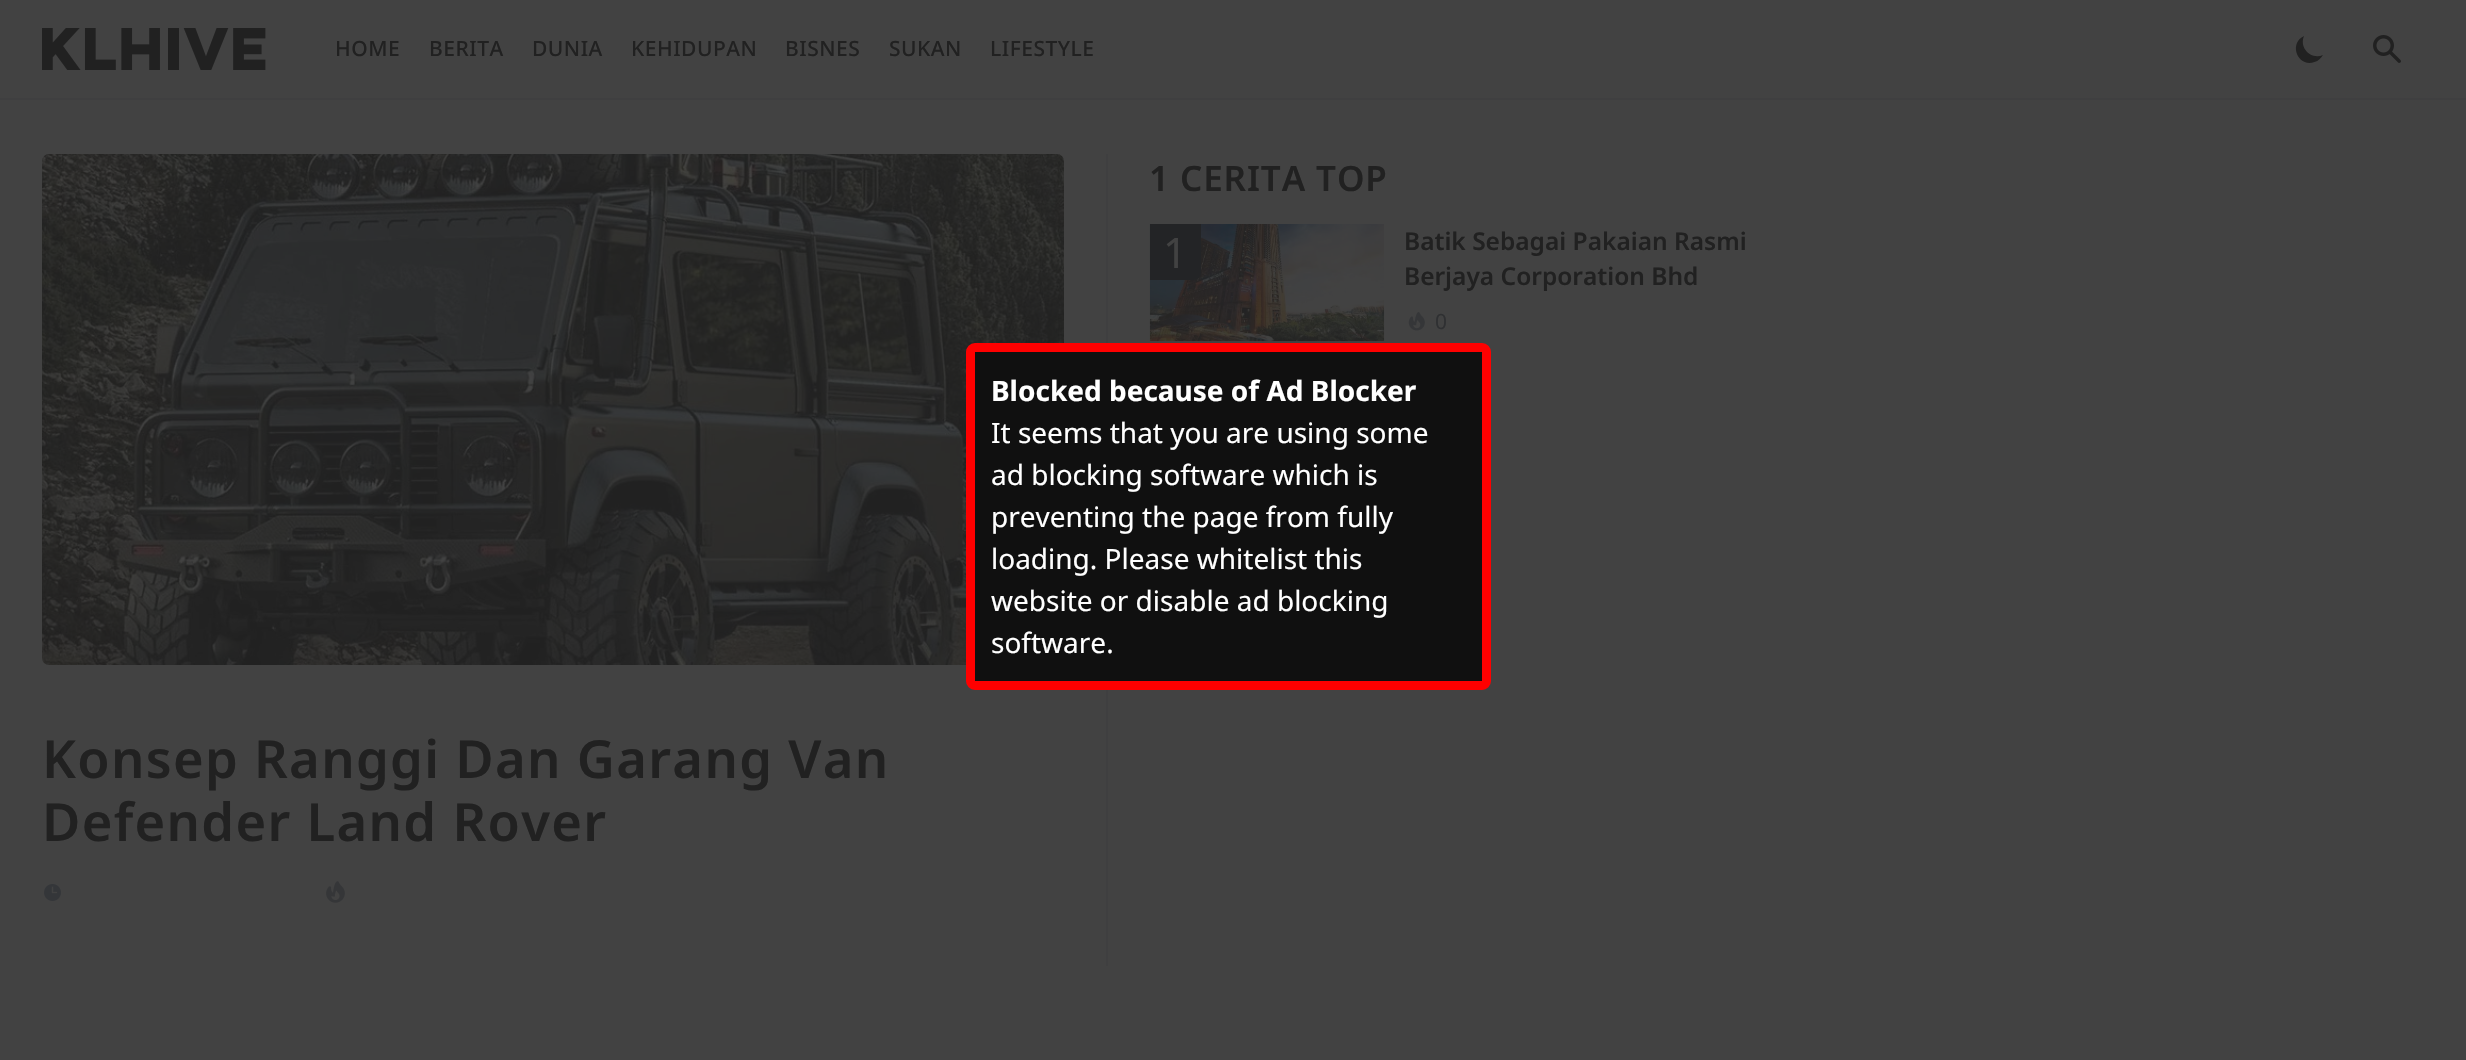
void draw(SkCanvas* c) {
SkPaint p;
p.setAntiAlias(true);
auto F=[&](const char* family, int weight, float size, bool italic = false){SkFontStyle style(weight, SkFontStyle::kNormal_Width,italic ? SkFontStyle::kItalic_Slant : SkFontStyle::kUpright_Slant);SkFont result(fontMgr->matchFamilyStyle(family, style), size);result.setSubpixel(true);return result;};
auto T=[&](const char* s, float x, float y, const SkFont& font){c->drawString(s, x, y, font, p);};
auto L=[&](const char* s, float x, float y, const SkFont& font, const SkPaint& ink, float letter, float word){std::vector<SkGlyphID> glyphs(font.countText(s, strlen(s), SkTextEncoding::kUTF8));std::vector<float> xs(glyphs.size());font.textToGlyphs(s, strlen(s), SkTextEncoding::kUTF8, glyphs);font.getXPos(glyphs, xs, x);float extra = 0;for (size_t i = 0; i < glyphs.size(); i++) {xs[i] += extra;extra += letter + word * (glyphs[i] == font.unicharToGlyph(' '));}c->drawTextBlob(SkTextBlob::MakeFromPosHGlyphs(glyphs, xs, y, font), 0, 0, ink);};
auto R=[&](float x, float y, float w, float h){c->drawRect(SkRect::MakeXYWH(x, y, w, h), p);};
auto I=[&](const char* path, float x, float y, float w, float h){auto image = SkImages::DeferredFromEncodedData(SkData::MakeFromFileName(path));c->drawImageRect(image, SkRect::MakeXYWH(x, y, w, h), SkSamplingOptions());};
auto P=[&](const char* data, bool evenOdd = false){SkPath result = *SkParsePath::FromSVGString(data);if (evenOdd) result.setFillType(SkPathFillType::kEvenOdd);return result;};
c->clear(0xff424242);
p.setColor(0xff3f3f40);
R(0,98,2466,2);
I("1.png",42,28,224,42);
auto f1 = F("Noto Sans",500,21);
p.setColor(0xff212121);
L("HOME",335,56,f1,p,.5,0);
L("BERITA",429,56,f1,p,.5,0);
L("DUNIA",532,56,f1,p,.5,0);
L("KEHIDUPAN",631,56,f1,p,.5,0);
L("BISNES",785,56,f1,p,.5,0);
L("SUKAN",889,56,f1,p,.5,0);
L("LIFESTYLE",990,56,f1,p,.5,0);
c->drawPath(P("M2323 55c-12 5-24-7-19-19c-16 7.5-6 32 10.5 26c4-1 6.5-4 8.5-7z"),p);
I("2.png",2373,35,28,28);
p.setColor(0xff3f3f40);
R(1106,154,2,812);
auto f2 = F("Noto Sans",600,35);
p.setColor(0xff212121);
L("1 CERITA TOP",1149,191,f2,p,.9,0);
I("3.png",1149,224,236,118);
p.setColor(0xff232426);
c->drawPath(P("M1150 224h51v49c0 4-3 7-7 7h-44z"),p);
auto f3 = F("Noto Sans",400,42);
p.setColor(0xff424242);
T("1",1163,268,f3);
auto f4 = F("Noto Sans",600,24.5);
p.setColor(0xff212121);
T("Batik Sebagai Pakaian Rasmi",1404,250,f4);
T("Berjaya Corporation Bhd",1404,285,f4);
I("4.png",1408,312,17,19);
auto f5 = F("Noto Sans",400,21);
p.setColor(0xff2f3032);
T("0",1435,329,f5);
I("5.png",42,154,1022,511);
auto f6 = F("Noto Sans",600,52.5);
p.setColor(0xff212121);
L("Konsep Ranggi Dan Garang Van",42,778,f6,p,1.3,0);
L("Defender Land Rover",42,841,f6,p,1.3,0);
I("6.png",44,884,17,17);
I("7.png",326,881,19,22);
p.setColor(0xff101010);
c->drawRoundRect(SkRect::MakeXYWH(970.5,347.5,516,338),4.5,4.5,p);
p.setStroke(true);
p.setStrokeWidth(9);
p.setColor(0xffff0000);
c->drawRoundRect(SkRect::MakeXYWH(970.5,347.5,516,338),4.5,4.5,p);
auto f7 = F("Noto Sans",700,28);
p.setStroke(false);
p.setColor(0xffffffff);
T("Blocked because of Ad Blocker",991,401,f7);
auto f8 = F("Noto Sans",400,28);
T("It seems that you are using some",991,443,f8);
T("ad blocking software which is",991,485,f8);
T("preventing the page from fully",991,527,f8);
T("loading. Please whitelist this",991,569,f8);
T("website or disable ad blocking",991,611,f8);
T("software.",991,653,f8);
}
